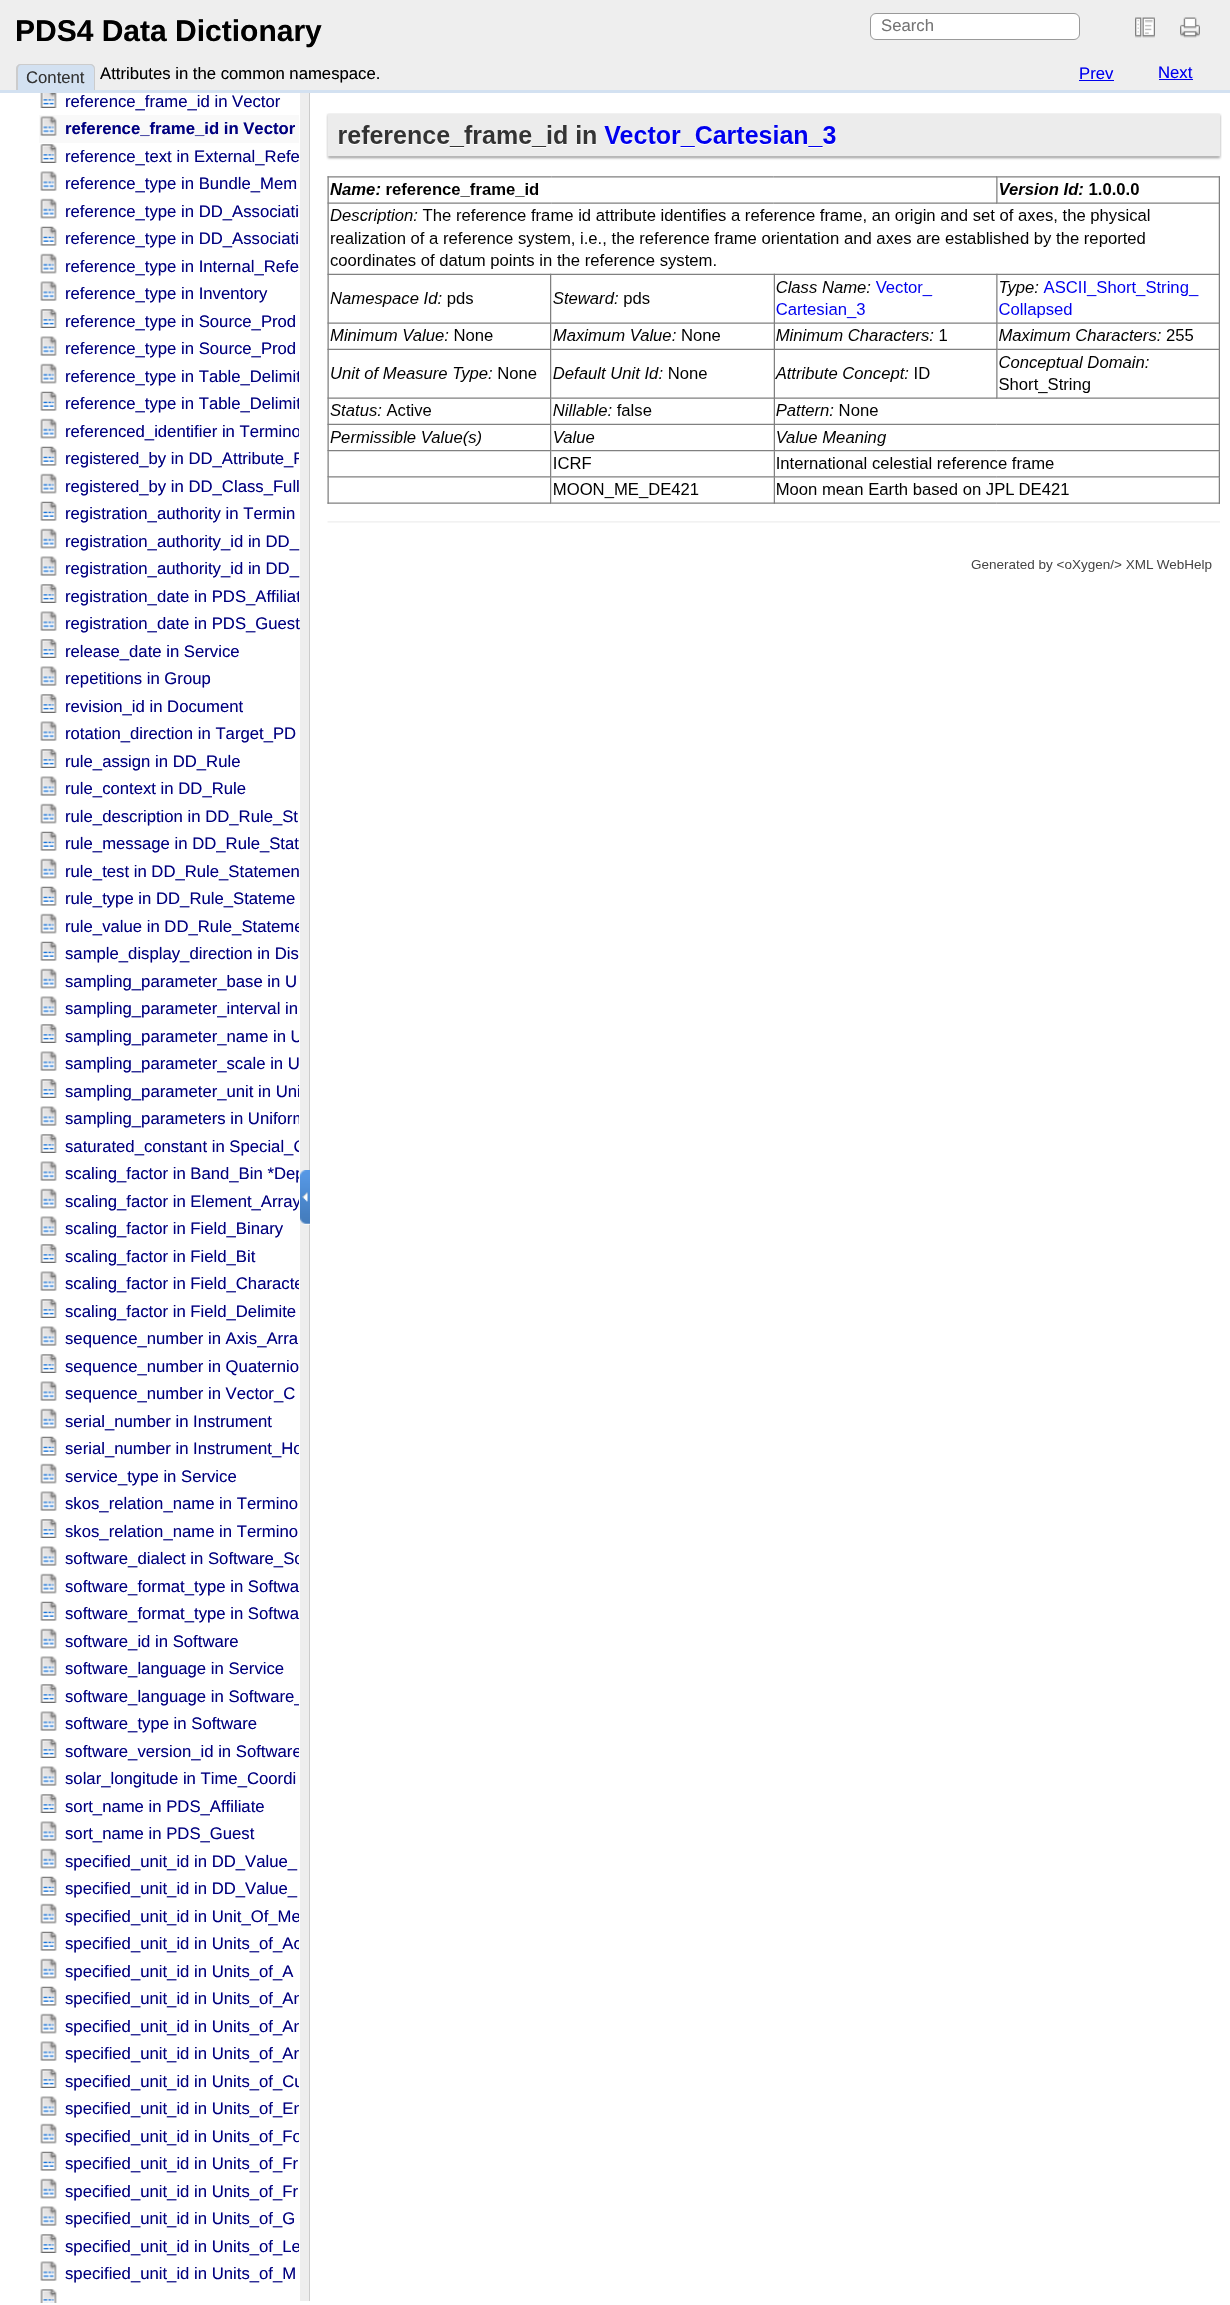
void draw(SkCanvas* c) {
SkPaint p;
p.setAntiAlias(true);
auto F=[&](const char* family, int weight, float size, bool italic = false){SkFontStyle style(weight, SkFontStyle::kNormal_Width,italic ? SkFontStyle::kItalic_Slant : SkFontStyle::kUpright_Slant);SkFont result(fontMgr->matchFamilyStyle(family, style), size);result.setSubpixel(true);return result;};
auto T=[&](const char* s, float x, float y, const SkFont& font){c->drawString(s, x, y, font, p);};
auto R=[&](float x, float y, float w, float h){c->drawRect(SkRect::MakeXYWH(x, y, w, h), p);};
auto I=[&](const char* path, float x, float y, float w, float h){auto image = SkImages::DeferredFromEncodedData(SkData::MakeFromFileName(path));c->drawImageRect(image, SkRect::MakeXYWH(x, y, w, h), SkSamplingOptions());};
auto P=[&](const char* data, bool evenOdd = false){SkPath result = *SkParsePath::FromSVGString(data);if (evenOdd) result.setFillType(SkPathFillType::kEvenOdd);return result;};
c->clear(0xffffffff);
p.setColor(0xffeeeeee);
R(0,0,1230,90);
auto f1 = F("Liberation Sans",700,30);
p.setColor(0xff000000);
T("PDS4 Data Dictionary",15,41,f1);
p.setColor(0xffffffff);
c->drawRoundRect(SkRect::MakeXYWH(870.5,13.5,209,26),5.5,5.5,p);
p.setStroke(true);
p.setStrokeWidth(1);
p.setColor(0xff999999);
c->drawRoundRect(SkRect::MakeXYWH(870.5,13.5,209,26),5.5,5.5,p);
auto f2 = F("Liberation Sans",400,16.7);
p.setStroke(false);
p.setColor(0xff757575);
T("Search",881,31,f2);
I("1.png",1135,17,20,21);
I("2.png",1180,17,20,21);
p.setColor(0xffd3e1f1);
c->drawPath(P("M21 64h69c3 0 5 2 5 5v21h-79v-21c0-3 2-5 5-5z"),p);
p.setColor(0xffcccccc);
c->drawPath(P("M21 64h69c3 0 5 2 5 5v21h-79v-21c0-3 2-5 5-5zm0 1h69c2 0 4 2 4 4v21h-76v-21c0-2 1-4 3-4z",true),p);
p.setColor(0xff333333);
T("Content",26,83,f2);
p.setColor(0xff000000);
T("Attributes in the common namespace.",100,79,f2);
p.setColor(0xff0000ee);
T("Prev",1079,79,f2);
R(1079,80,35,1);
T("Next",1158,78,f2);
R(1159,79,34,1);
p.setColor(0xffd3e1f1);
R(0,90,1230,3);
I("3.png",40,93,17,15);
p.setColor(0xff000080);
T("reference_frame_id in Vector",65,107,f2);
p.setColor(0xfff9f9f9);
R(39,115,260,28);
I("4.png",40,116,17,20);
auto f3 = F("Liberation Sans",700,16.7);
p.setColor(0xff000080);
T("reference_frame_id in Vector",65,134,f3);
I("5.png",40,144,17,19);
T("reference_text in External_Refe",65,162,f2);
I("6.png",40,171,17,20);
T("reference_type in Bundle_Mem",65,189,f2);
I("7.png",40,198,17,21);
T("reference_type in DD_Associati",65,217,f2);
I("8.png",40,226,17,20);
T("reference_type in DD_Associati",65,244,f2);
I("7.png",40,253,17,21);
T("reference_type in Internal_Refe",65,272,f2);
I("6.png",40,281,17,20);
T("reference_type in Inventory",65,299,f2);
I("5.png",40,309,17,19);
T("reference_type in Source_Prod",65,327,f2);
I("6.png",40,336,17,20);
T("reference_type in Source_Prod",65,354,f2);
I("7.png",40,363,17,21);
c->save();
c->clipRect(SkRect::MakeXYWH(1,94,298,2209));
T("reference_type in Table_Delimit",65,382,f2);
c->restore();
I("8.png",40,391,17,20);
c->save();
c->clipRect(SkRect::MakeXYWH(1,94,298,2209));
T("reference_type in Table_Delimit",65,409,f2);
c->restore();
I("7.png",40,418,17,21);
c->save();
c->clipRect(SkRect::MakeXYWH(1,94,298,2209));
T("referenced_identifier in Termino",65,437,f2);
c->restore();
I("8.png",40,446,17,20);
c->save();
c->clipRect(SkRect::MakeXYWH(1,94,298,2209));
T("registered_by in DD_Attribute_F",65,464,f2);
c->restore();
I("7.png",40,473,17,21);
T("registered_by in DD_Class_Full",65,492,f2);
I("8.png",40,501,17,20);
T("registration_authority in Termin",65,519,f2);
I("7.png",40,528,17,21);
T("registration_authority_id in DD_",65,547,f2);
I("6.png",40,556,17,20);
T("registration_authority_id in DD_",65,574,f2);
I("5.png",40,584,17,19);
c->save();
c->clipRect(SkRect::MakeXYWH(1,94,298,2209));
T("registration_date in PDS_Affiliat",65,602,f2);
c->restore();
I("6.png",40,611,17,20);
T("registration_date in PDS_Guest",65,629,f2);
I("5.png",40,639,17,19);
T("release_date in Service",65,657,f2);
I("6.png",40,666,17,20);
T("repetitions in Group",65,684,f2);
I("5.png",40,694,17,19);
T("revision_id in Document",65,712,f2);
I("6.png",40,721,17,20);
T("rotation_direction in Target_PD",65,739,f2);
I("5.png",40,749,17,19);
T("rule_assign in DD_Rule",65,767,f2);
I("6.png",40,776,17,20);
T("rule_context in DD_Rule",65,794,f2);
I("7.png",40,803,17,21);
T("rule_description in DD_Rule_St",65,822,f2);
I("8.png",40,831,17,20);
T("rule_message in DD_Rule_Stat",65,849,f2);
I("7.png",40,858,17,21);
T("rule_test in DD_Rule_Statemen",65,877,f2);
I("8.png",40,886,17,20);
T("rule_type in DD_Rule_Stateme",65,904,f2);
I("7.png",40,913,17,21);
c->save();
c->clipRect(SkRect::MakeXYWH(1,94,298,2209));
T("rule_value in DD_Rule_Stateme",65,932,f2);
c->restore();
I("8.png",40,941,17,20);
T("sample_display_direction in Dis",65,959,f2);
I("7.png",40,968,17,21);
T("sampling_parameter_base in U",65,987,f2);
I("6.png",40,996,17,20);
T("sampling_parameter_interval in",65,1014,f2);
I("5.png",40,1024,17,19);
c->save();
c->clipRect(SkRect::MakeXYWH(1,94,298,2209));
T("sampling_parameter_name in U",65,1042,f2);
c->restore();
I("6.png",40,1051,17,20);
T("sampling_parameter_scale in U",65,1069,f2);
I("5.png",40,1079,17,19);
c->save();
c->clipRect(SkRect::MakeXYWH(1,94,298,2209));
T("sampling_parameter_unit in Uni",65,1097,f2);
c->restore();
I("6.png",40,1106,17,20);
c->save();
c->clipRect(SkRect::MakeXYWH(1,94,298,2209));
T("sampling_parameters in Uniform",65,1124,f2);
c->restore();
I("5.png",40,1134,17,19);
c->save();
c->clipRect(SkRect::MakeXYWH(1,94,298,2209));
T("saturated_constant in Special_C",65,1152,f2);
c->restore();
I("6.png",40,1161,17,20);
c->save();
c->clipRect(SkRect::MakeXYWH(1,94,298,2209));
T("scaling_factor in Band_Bin *Dep",65,1179,f2);
c->restore();
I("7.png",40,1188,17,21);
c->save();
c->clipRect(SkRect::MakeXYWH(1,94,298,2209));
T("scaling_factor in Element_Array",65,1207,f2);
c->restore();
I("6.png",40,1216,17,20);
T("scaling_factor in Field_Binary",65,1234,f2);
I("5.png",40,1244,17,19);
T("scaling_factor in Field_Bit",65,1262,f2);
I("9.png",40,1271,17,20);
c->save();
c->clipRect(SkRect::MakeXYWH(1,94,298,2209));
T("scaling_factor in Field_Characte",65,1289,f2);
c->restore();
I("5.png",40,1299,17,19);
T("scaling_factor in Field_Delimite",65,1317,f2);
I("6.png",40,1326,17,20);
T("sequence_number in Axis_Arra",65,1344,f2);
I("5.png",40,1354,17,19);
T("sequence_number in Quaternio",65,1372,f2);
I("9.png",40,1381,17,20);
T("sequence_number in Vector_C",65,1399,f2);
I("7.png",40,1408,17,21);
T("serial_number in Instrument",65,1427,f2);
I("8.png",40,1436,17,20);
c->save();
c->clipRect(SkRect::MakeXYWH(1,94,298,2209));
T("serial_number in Instrument_Ho",65,1454,f2);
c->restore();
I("7.png",40,1463,17,21);
T("service_type in Service",65,1482,f2);
I("6.png",40,1491,17,20);
T("skos_relation_name in Termino",65,1509,f2);
I("5.png",40,1519,17,19);
T("skos_relation_name in Termino",65,1537,f2);
I("6.png",40,1546,17,20);
c->save();
c->clipRect(SkRect::MakeXYWH(1,94,298,2209));
T("software_dialect in Software_So",65,1564,f2);
c->restore();
I("7.png",40,1573,17,21);
T("software_format_type in Softwa",65,1592,f2);
I("8.png",40,1601,17,20);
T("software_format_type in Softwa",65,1619,f2);
I("7.png",40,1628,17,21);
T("software_id in Software",65,1647,f2);
I("6.png",40,1656,17,20);
T("software_language in Service",65,1674,f2);
I("5.png",40,1684,17,19);
c->save();
c->clipRect(SkRect::MakeXYWH(1,94,298,2209));
T("software_language in Software_",65,1702,f2);
c->restore();
I("6.png",40,1711,17,20);
T("software_type in Software",65,1729,f2);
I("5.png",40,1739,17,19);
c->save();
c->clipRect(SkRect::MakeXYWH(1,94,298,2209));
T("software_version_id in Software",65,1757,f2);
c->restore();
I("6.png",40,1766,17,20);
T("solar_longitude in Time_Coordi",65,1784,f2);
I("5.png",40,1794,17,19);
T("sort_name in PDS_Affiliate",65,1812,f2);
I("6.png",40,1821,17,20);
T("sort_name in PDS_Guest",65,1839,f2);
I("7.png",40,1848,17,21);
T("specified_unit_id in DD_Value_",65,1867,f2);
I("8.png",40,1876,17,20);
T("specified_unit_id in DD_Value_",65,1894,f2);
I("7.png",40,1903,17,21);
c->save();
c->clipRect(SkRect::MakeXYWH(1,94,298,2209));
T("specified_unit_id in Unit_Of_Me",65,1922,f2);
c->restore();
I("8.png",40,1931,17,20);
c->save();
c->clipRect(SkRect::MakeXYWH(1,94,298,2209));
T("specified_unit_id in Units_of_Ac",65,1949,f2);
c->restore();
I("7.png",40,1958,17,21);
T("specified_unit_id in Units_of_A",65,1977,f2);
I("8.png",40,1986,17,20);
c->save();
c->clipRect(SkRect::MakeXYWH(1,94,298,2209));
T("specified_unit_id in Units_of_An",65,2004,f2);
c->restore();
I("7.png",40,2013,17,21);
c->save();
c->clipRect(SkRect::MakeXYWH(1,94,298,2209));
T("specified_unit_id in Units_of_An",65,2032,f2);
c->restore();
I("6.png",40,2041,17,20);
T("specified_unit_id in Units_of_Ar",65,2059,f2);
I("5.png",40,2069,17,19);
c->save();
c->clipRect(SkRect::MakeXYWH(1,94,298,2209));
T("specified_unit_id in Units_of_Cu",65,2087,f2);
c->restore();
I("6.png",40,2096,17,20);
c->save();
c->clipRect(SkRect::MakeXYWH(1,94,298,2209));
T("specified_unit_id in Units_of_En",65,2114,f2);
c->restore();
I("7.png",40,2123,17,21);
c->save();
c->clipRect(SkRect::MakeXYWH(1,94,298,2209));
T("specified_unit_id in Units_of_Fo",65,2142,f2);
c->restore();
I("8.png",40,2151,17,20);
T("specified_unit_id in Units_of_Fr",65,2169,f2);
I("7.png",40,2178,17,21);
T("specified_unit_id in Units_of_Fr",65,2197,f2);
I("6.png",40,2206,17,20);
T("specified_unit_id in Units_of_G",65,2224,f2);
I("5.png",40,2234,17,19);
c->save();
c->clipRect(SkRect::MakeXYWH(1,94,298,2209));
T("specified_unit_id in Units_of_Le",65,2252,f2);
c->restore();
I("6.png",40,2261,17,20);
T("specified_unit_id in Units_of_M",65,2279,f2);
I("10.png",40,2289,17,14);
p.setColor(0xffeeeeee);
R(300,93,9,2208);
p.setColor(0xffcccccc);
R(309,93,1,2208);
I("11.png",300,1170,10,55);
I("12.png",326,113,896,459);
}
